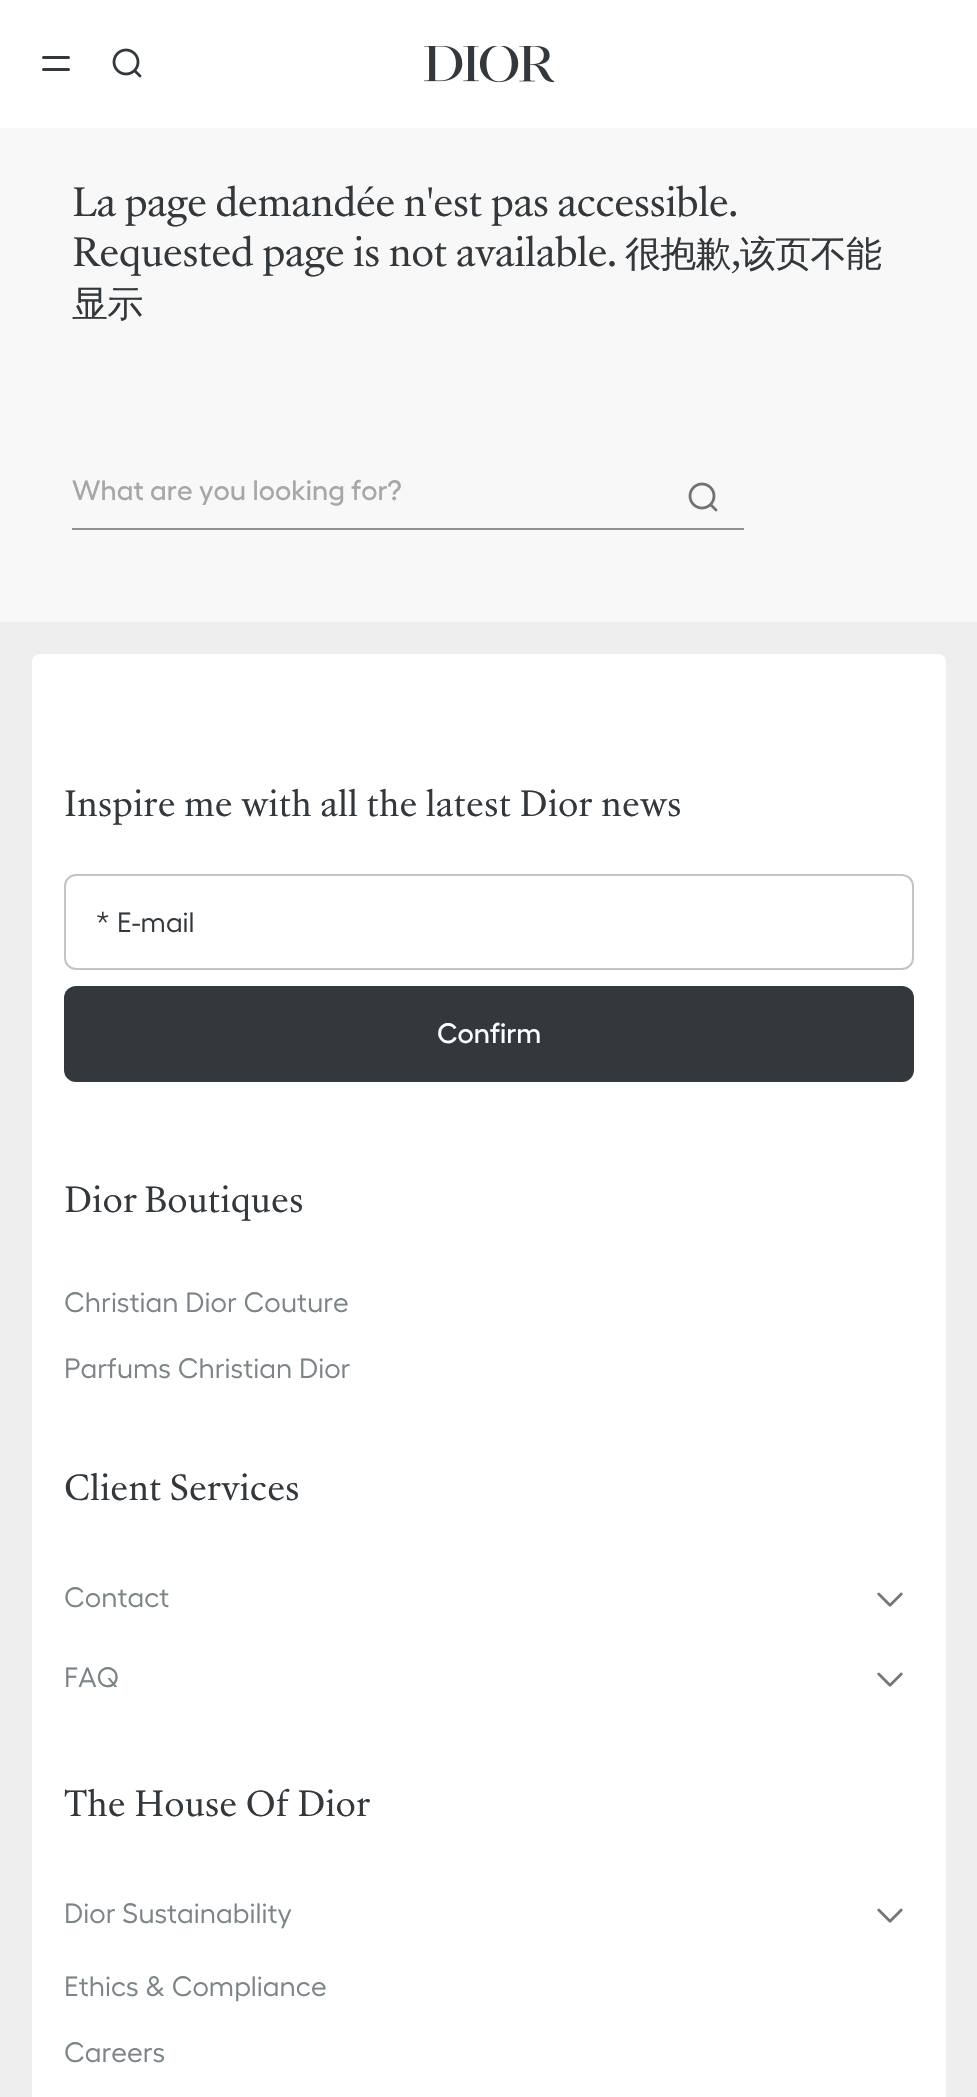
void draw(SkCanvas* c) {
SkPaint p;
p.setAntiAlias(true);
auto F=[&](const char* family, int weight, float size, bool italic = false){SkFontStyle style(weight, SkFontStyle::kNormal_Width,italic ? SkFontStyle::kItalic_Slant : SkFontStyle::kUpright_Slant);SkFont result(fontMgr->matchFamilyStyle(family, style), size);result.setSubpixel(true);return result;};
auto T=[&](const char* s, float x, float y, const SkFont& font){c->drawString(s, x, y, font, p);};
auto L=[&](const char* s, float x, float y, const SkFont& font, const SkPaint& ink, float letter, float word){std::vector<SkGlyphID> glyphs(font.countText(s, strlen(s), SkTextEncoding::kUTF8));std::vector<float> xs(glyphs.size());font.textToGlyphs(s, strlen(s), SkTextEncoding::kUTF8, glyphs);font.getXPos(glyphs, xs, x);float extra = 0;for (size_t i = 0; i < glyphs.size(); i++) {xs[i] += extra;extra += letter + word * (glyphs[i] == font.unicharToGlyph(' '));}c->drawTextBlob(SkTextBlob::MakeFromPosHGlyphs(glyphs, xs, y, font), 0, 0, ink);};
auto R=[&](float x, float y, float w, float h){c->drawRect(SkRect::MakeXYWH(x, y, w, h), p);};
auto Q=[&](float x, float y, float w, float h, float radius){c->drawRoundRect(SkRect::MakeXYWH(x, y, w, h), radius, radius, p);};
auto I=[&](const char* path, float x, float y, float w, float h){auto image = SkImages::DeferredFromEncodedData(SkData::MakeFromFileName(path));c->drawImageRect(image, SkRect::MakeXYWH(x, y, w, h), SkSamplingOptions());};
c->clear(0xfff8f8f8);
p.setColor(0xffffffff);
R(0,0,977,128);
p.setColor(0xff33383c);
Q(42,56,28,3,1.5);
Q(42,68,28,3,1.5);
I("1.png",112,48,30,30);
I("2.png",424,46,130,37);
auto f1 = F("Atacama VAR",400,36);
L("La page demandée n'est pas accessible.",72,216,f1,p,-.7,-.5);
L("Requested page is not available.",72,266,f1,p,-.7,-.5);
auto f2 = F("WenQuanYi Zen Hei",500,36);
L("很抱歉",625,266,f2,p,-.7,0);
L(",",731,266,f1,p,-.7,0);
L("该页不能",740,266,f2,p,-.7,0);
L("显示",72,316,f2,p,-.7,0);
auto f3 = F("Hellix",500,28);
p.setColor(0xffa5a7a9);
T("What are you looking for?",72,500,f3);
I("3.png",688,482,30,30);
p.setColor(0xff909090);
R(72,528,672,2);
p.setColor(0xffeeeeee);
R(0,622,977,1475);
p.setColor(0xffffffff);
Q(32,654,914,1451,8);
auto f4 = F("Atacama VAR",400,32);
p.setColor(0xff33383c);
L("Inspire me with all the latest Dior news",64,816,f4,p,0,-.5);
p.setStroke(true);
p.setStrokeWidth(2);
p.setColor(0xffc4c4c4);
c->drawRoundRect(SkRect::MakeXYWH(65,875,848,94),11,11,p);
auto f5 = F("Hellix",400,28);
p.setStroke(false);
p.setColor(0xff33383c);
T("*",96,932,f5);
T("E-mail",117,932,f5);
Q(64,986,850,96,12);
p.setColor(0xffffffff);
T("Confirm",437,1043,f3);
p.setColor(0xff33383c);
L("Dior Boutiques",64,1212,f4,p,0,-2);
p.setColor(0xff7b8487);
T("Christian Dior Couture",64,1312,f5);
T("Parfums Christian Dior",64,1378,f5);
p.setColor(0xff33383c);
L("Client Services",64,1500,f4,p,0,-1);
p.setColor(0xff7b8487);
T("Contact",64,1607,f5);
I("4.png",877,1592,26,15);
T("FAQ",64,1687,f5);
I("4.png",877,1672,26,15);
p.setColor(0xff33383c);
L("The House Of Dior",64,1816,f4,p,0,-.5);
p.setColor(0xff7b8487);
T("Dior Sustainability",64,1923,f5);
I("4.png",877,1908,26,15);
T("Ethics & Compliance",64,1996,f5);
T("Careers",64,2062,f5);
}
